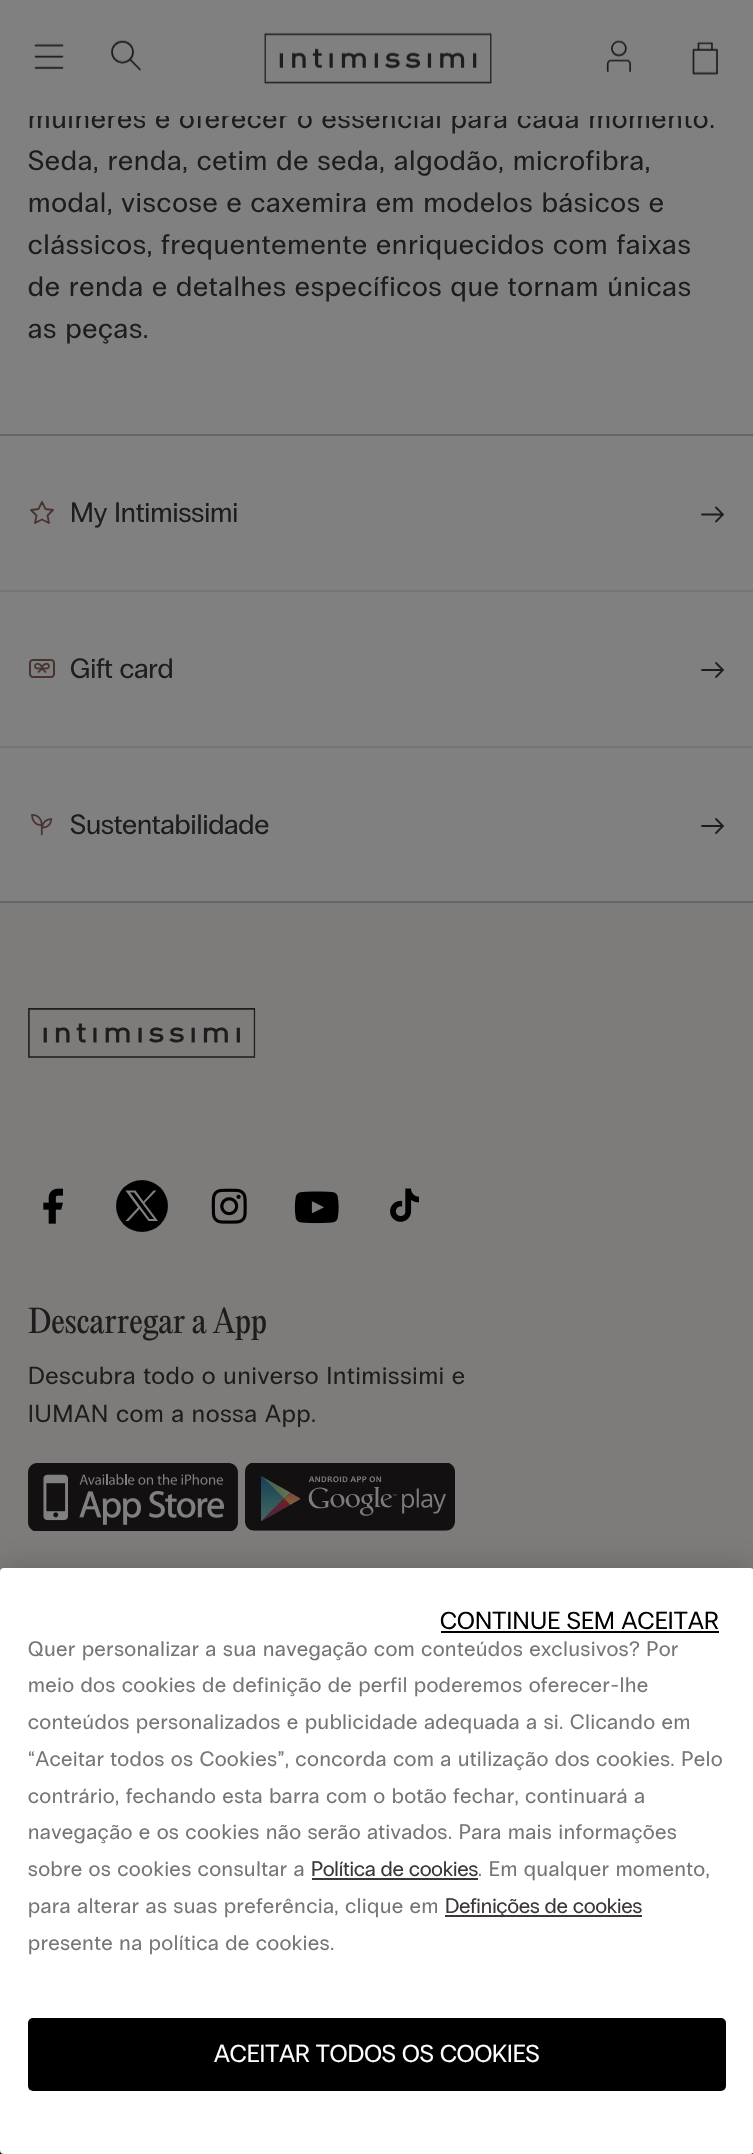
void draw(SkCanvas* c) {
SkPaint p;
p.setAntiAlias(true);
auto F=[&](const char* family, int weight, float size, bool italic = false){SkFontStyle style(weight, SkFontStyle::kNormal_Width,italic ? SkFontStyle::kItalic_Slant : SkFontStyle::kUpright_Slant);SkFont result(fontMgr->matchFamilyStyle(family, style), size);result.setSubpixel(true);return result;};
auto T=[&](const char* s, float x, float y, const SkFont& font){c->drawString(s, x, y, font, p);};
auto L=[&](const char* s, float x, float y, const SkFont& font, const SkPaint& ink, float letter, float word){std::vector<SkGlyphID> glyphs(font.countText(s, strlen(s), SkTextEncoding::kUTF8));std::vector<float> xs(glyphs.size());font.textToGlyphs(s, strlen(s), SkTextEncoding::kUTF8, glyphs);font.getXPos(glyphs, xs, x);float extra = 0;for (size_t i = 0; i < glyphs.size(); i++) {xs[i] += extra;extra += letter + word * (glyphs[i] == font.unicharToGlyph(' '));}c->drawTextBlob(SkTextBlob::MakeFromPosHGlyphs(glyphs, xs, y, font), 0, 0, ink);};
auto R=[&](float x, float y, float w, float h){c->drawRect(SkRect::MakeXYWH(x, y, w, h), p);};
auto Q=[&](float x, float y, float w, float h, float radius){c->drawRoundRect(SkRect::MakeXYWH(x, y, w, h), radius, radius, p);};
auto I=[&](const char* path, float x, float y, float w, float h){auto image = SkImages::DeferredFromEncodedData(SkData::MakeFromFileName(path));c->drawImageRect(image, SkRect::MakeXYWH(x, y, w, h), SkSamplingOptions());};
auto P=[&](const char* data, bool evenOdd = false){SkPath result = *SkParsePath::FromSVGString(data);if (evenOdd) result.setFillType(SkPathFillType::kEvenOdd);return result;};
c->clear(0xff808080);
I("1.png",34,43,30,26);
I("2.png",111,40,30,31);
I("3.png",264,32,228,52);
I("4.png",606,40,25,32);
I("5.png",692,41,26,34);
auto f1 = F("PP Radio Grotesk",400,28);
p.setColor(0xff1e1c1c);
L("mulheres e oferecer o essencial para cada momento.",28,128,f1,p,1.12,0);
p.setColor(0xff808080);
R(29,108,677,8);
p.setColor(0xff1e1c1c);
L("Seda, renda, cetim de seda, algodão, microfibra,",28,170,f1,p,1.12,0);
L("modal, viscose e caxemira em modelos básicos e",28,212,f1,p,1.12,0);
L("clássicos, frequentemente enriquecidos com faixas",28,254,f1,p,1.12,0);
L("de renda e detalhes específicos que tornam únicas",28,296,f1,p,1.12,0);
L("as peças.",28,338,f1,p,1.12,0);
p.setColor(0xff666666);
R(0,434,753,2);
R(0,901,753,2);
p.setColor(0xff757575);
R(0,590,753,2);
p.setStroke(true);
p.setStrokeWidth(1.8);
p.setStrokeCap(SkPaint::kRound_Cap);
p.setStrokeJoin(SkPaint::kRound_Join);
p.setColor(0xff483330);
c->drawPath(P("M42 519.5l-7 3.5l1.5-7.5l-5.5-5.5l7.5-1l3.5-7l3.5 7l7.5 1l-5.5 5.5l1.5 7.5z"),p);
p.setStroke(false);
p.setColor(0xff1e1c1c);
T("My Intimissimi",70,522,f1);
p.setStroke(true);
p.setStrokeJoin(SkPaint::kMiter_Join);
c->drawPath(P("M702 514.5h21m-7 7l7-7l-7-7"),p);
p.setStroke(false);
p.setColor(0xff757575);
R(0,746,753,2);
I("6.png",29,659,26,19);
p.setColor(0xff1e1c1c);
T("Gift card",70,678,f1);
p.setStroke(true);
c->drawPath(P("M702 670h21m-7 7l7-7l-7-7"),p);
I("7.png",31,814,22,22);
p.setStroke(false);
T("Sustentabilidade",70,834,f1);
p.setStroke(true);
c->drawPath(P("M702 826h21m-7 7l7-7l-7-7"),p);
p.setStroke(false);
p.setColor(0xff7d7c7b);
R(0,903,753,669);
I("8.png",28,1008,228,50);
I("9.png",43,1188,20,36);
p.setColor(0xff000000);
c->drawCircle(142,1206,26,p);
p.setStroke(true);
p.setStrokeWidth(.1);
p.setStrokeCap(SkPaint::kButt_Cap);
p.setColor(0xff808080);
c->drawCircle(142,1206,26,p);
p.setStroke(false);
c->drawPath(P("M125.5 1190.5l12.5 17l-12.5 13.5h3l11-12l9 12h9.5l-13.5-18l12-12.5h-3l-10 11l-8-11zm4.5 2h4l20 26.5h-4.5z"),p);
I("10.png",211,1188,36,36);
I("11.png",294,1191,45,33);
I("12.png",390,1188,29,34);
auto f2 = F("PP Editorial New",400,31.5);
p.setColor(0xff1e1c1c);
T("Descarregar a App",28,1333,f2);
auto f3 = F("PP Radio Grotesk",400,24.5);
L("Descubra todo o universo Intimissimi e",28,1384,f3,p,.9,0);
L("IUMAN com a nossa App.",28,1422,f3,p,.9,0);
I("13.png",28,1463,210,68);
I("14.png",245,1463,210,68);
R(0,2150,753,4);
p.setColor(0x33000000);
p.setMaskFilter(SkMaskFilter::MakeBlur(kNormal_SkBlurStyle, 16));
c->drawRoundRect(SkRect::MakeXYWH(0,1568,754,586),4,4,p);
p.setMaskFilter(nullptr);
p.setColor(0xffffffff);
Q(0,1568,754,586,4);
p.setColor(0xff000000);
L("CONTINUE SEM ACEITAR",440,1629,f3,p,.25,0);
R(441,1631,278,2);
auto f4 = F("PP Radio Grotesk",400,21);
p.setColor(0xff757575);
L("Quer personalizar a sua navegação com conteúdos exclusivos? Por",28,1656,f4,p,.75,0);
L("meio dos cookies de definição de perfil poderemos oferecer-lhe",28,1692,f4,p,.75,0);
L("conteúdos personalizados e publicidade adequada a si. Clicando em",28,1729,f4,p,.75,0);
L("“Aceitar todos os Cookies”, concorda com a utilização dos cookies. Pelo",28,1766,f4,p,.75,0);
L("contrário, fechando esta barra com o botão fechar, continuará a",28,1803,f4,p,.75,0);
L("navegação e os cookies não serão ativados. Para mais informações",28,1839,f4,p,.75,0);
L("sobre os cookies consultar a",28,1876,f4,p,.75,0);
p.setColor(0xff3c3738);
T("Política de cookies",311,1876,f4);
R(312,1878,166,2);
p.setColor(0xff757575);
L(". Em qualquer momento,",478,1876,f4,p,.75,0);
L("para alterar as suas preferência, clique em",28,1913,f4,p,.75,0);
p.setColor(0xff3c3738);
R(445,1915,197,2);
T("Definições de cookies",445,1913,f4);
p.setColor(0xff757575);
L("presente na política de cookies.",28,1950,f4,p,.75,0);
p.setColor(0xff000000);
Q(28,2018,698,73,5);
p.setColor(0xffffffff);
T("ACEITAR TODOS OS COOKIES",214,2062,f3);
}
